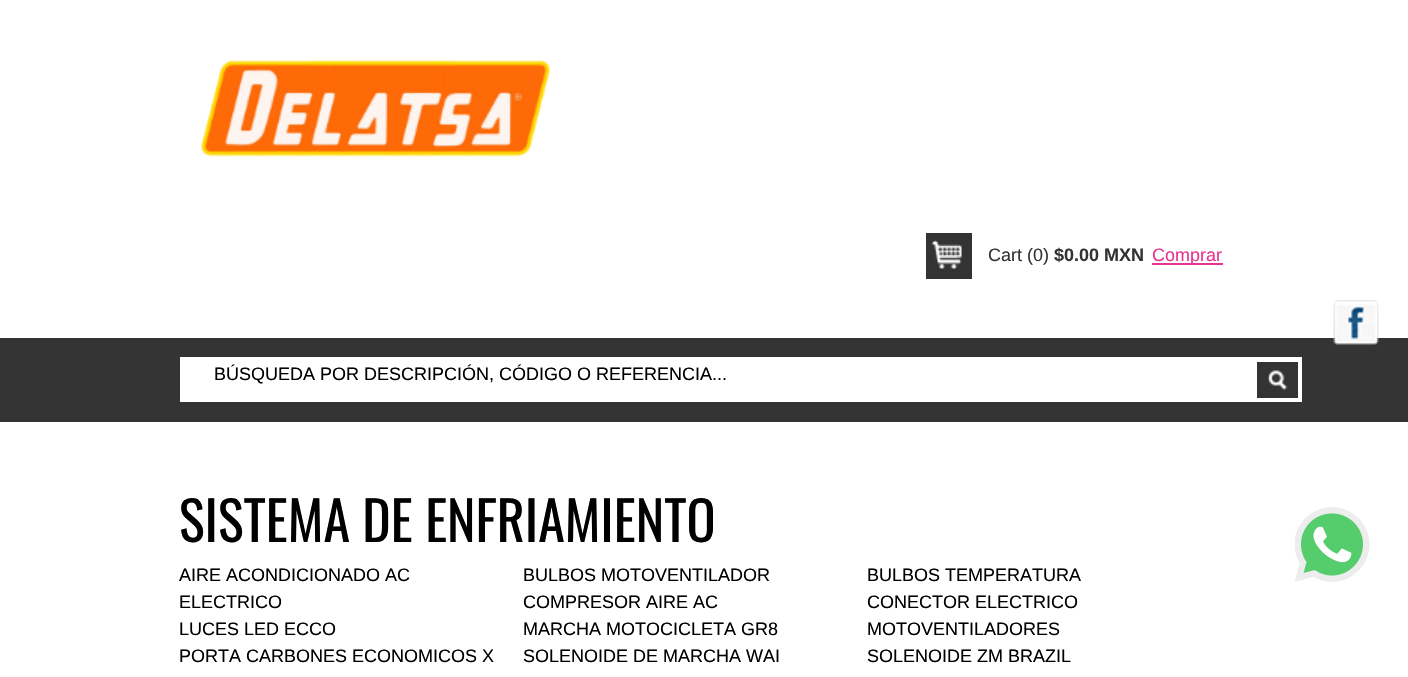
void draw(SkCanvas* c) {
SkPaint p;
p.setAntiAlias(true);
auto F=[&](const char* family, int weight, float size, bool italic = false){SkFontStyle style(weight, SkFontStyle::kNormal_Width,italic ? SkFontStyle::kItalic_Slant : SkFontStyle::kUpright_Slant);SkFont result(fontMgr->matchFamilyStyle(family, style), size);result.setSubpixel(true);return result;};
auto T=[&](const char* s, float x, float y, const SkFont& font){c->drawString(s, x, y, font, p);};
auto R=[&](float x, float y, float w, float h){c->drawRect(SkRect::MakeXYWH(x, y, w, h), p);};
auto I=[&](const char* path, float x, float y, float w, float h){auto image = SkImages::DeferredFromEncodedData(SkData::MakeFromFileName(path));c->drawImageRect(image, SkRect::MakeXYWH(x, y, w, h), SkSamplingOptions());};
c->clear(0xffffffff);
I("1.png",200,59,351,98);
p.setColor(0xff333333);
R(926,233,46,46);
I("2.png",931,240,31,29);
auto f1 = F("Liberation Sans",400,18);
p.setColor(0xff343434);
T("Cart (0)",988,261,f1);
auto f2 = F("Liberation Sans",700,18);
T("$0.00 MXN",1054,261,f2);
p.setColor(0xffe53590);
R(1152,263,71,2);
T("Comprar",1152,261,f1);
p.setColor(0xff343434);
R(0,338,1408,84);
I("3.png",1333,300,46,45);
p.setColor(0xffffffff);
R(180,357,1122,45);
p.setColor(0xff000000);
T("BÚSQUEDA POR DESCRIPCIÓN, CÓDIGO O REFERENCIA...",214,380,f1);
p.setColor(0xff333333);
R(1257,362,41,36);
I("4.png",1267,370,21,21);
auto f3 = F("Oswald",400,54);
p.setColor(0xff000000);
T("SISTEMA DE ENFRIAMIENTO",179,542,f3);
T("AIRE ACONDICIONADO AC",179,581,f1);
T("ELECTRICO",179,608,f1);
T("BULBOS MOTOVENTILADOR",523,581,f1);
T("BULBOS TEMPERATURA",867,581,f1);
T("COMPRESOR AIRE AC",523,608,f1);
T("CONECTOR ELECTRICO",867,608,f1);
T("LUCES LED ECCO",179,635,f1);
T("MARCHA MOTOCICLETA GR8",523,635,f1);
T("MOTOVENTILADORES",867,635,f1);
T("PORTA CARBONES ECONOMICOS X",179,662,f1);
T("SOLENOIDE DE MARCHA WAI",523,662,f1);
T("SOLENOIDE ZM BRAZIL",867,662,f1);
I("5.png",1295,507,75,75);
}
